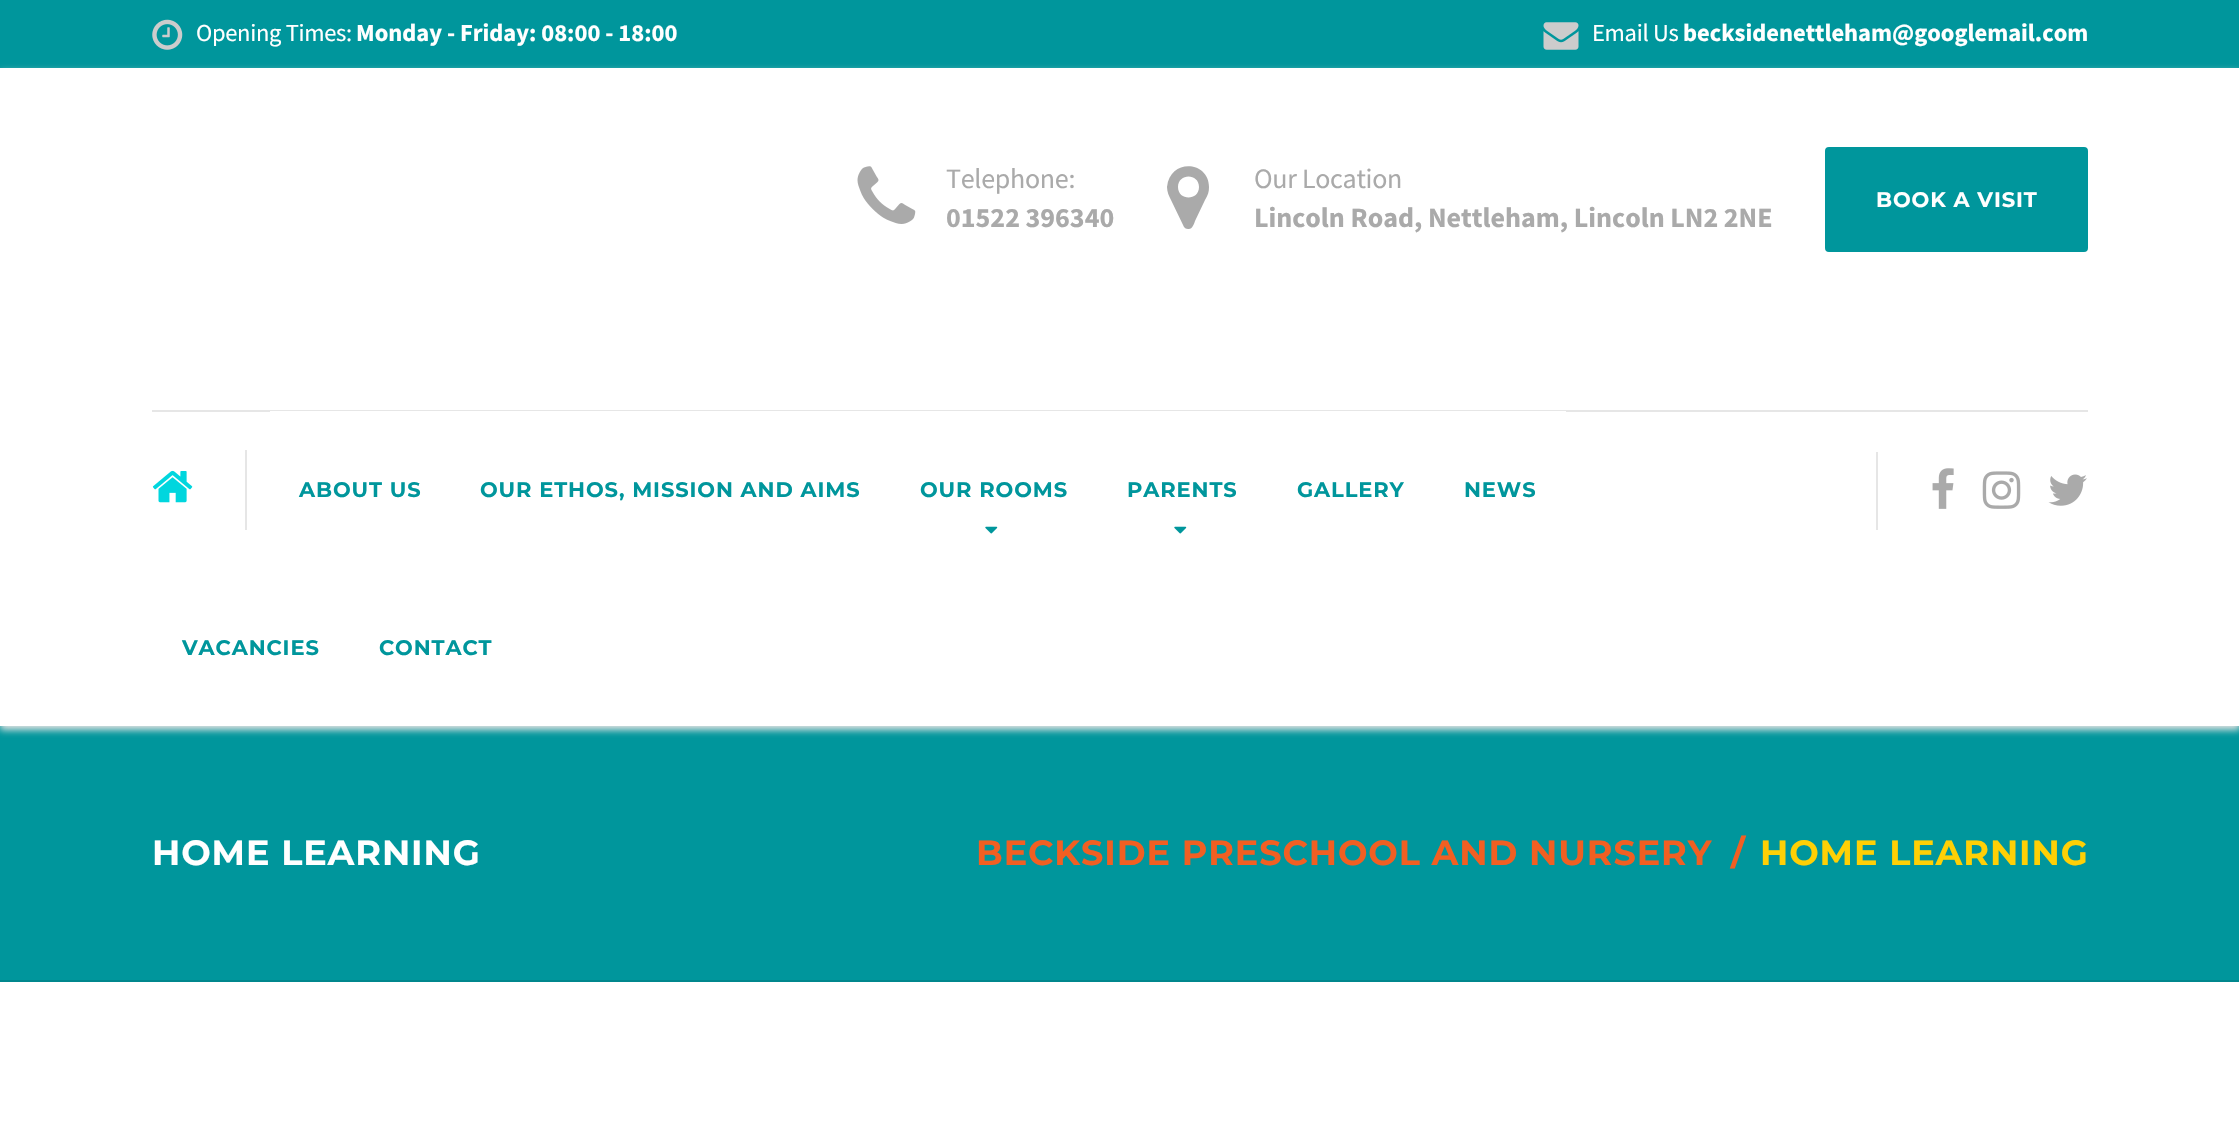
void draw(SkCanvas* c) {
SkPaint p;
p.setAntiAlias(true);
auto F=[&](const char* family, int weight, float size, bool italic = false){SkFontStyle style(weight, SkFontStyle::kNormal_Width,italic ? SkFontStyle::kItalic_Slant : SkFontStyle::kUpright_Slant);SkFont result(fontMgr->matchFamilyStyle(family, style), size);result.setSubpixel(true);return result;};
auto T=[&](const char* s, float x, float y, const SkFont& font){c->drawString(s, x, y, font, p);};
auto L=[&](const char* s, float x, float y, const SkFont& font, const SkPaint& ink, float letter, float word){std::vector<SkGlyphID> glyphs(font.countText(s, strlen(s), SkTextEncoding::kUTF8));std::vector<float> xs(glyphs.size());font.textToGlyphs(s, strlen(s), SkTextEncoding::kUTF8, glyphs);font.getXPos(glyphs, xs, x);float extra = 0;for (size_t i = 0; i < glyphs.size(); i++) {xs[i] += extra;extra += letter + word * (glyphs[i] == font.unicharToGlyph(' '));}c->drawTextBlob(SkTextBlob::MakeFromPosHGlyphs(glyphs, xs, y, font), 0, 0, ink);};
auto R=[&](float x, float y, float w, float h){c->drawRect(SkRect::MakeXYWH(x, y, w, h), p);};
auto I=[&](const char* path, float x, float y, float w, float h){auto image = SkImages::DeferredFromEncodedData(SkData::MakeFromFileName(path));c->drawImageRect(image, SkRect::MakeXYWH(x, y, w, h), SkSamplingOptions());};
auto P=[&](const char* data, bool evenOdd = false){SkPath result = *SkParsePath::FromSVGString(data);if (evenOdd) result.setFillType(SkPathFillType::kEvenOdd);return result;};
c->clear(0xffffffff);
p.setColor(0xff00969c);
R(0,0,2239,68);
I("1.png",152,19,31,31);
auto f1 = F("Source Sans Pro",400,24.5);
p.setColor(0xffffffff);
L("Opening Times:",196,41,f1,p,-.3,0);
auto f2 = F("Source Sans Pro",700,24.5);
T("Monday - Friday: 08:00 - 18:00",356,41,f2);
I("2.png",1543,22,36,28);
L("Email Us",1592,41,f1,p,-.3,0);
T("becksidenettleham@googlemail.com",1683,41,f2);
p.setColor(0xff00969c);
R(0,726,2239,254);
c->save();
c->clipPath(P("M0 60h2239v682h-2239zm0 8h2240v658h-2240z",true),true);
p.setColor(0xffe2e2e2);
p.setMaskFilter(SkMaskFilter::MakeBlur(kNormal_SkBlurStyle, 3.5));
c->drawRect(SkRect::MakeXYWH(0,72,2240,658),p);
p.setMaskFilter(nullptr);
c->restore();
I("3.png",857,166,59,58);
auto f3 = F("Source Sans Pro",400,28);
p.setColor(0xffaaaaaa);
L("Telephone:",946,188,f3,p,-.3,0);
auto f4 = F("Source Sans Pro",700,28);
T("01522 396340",946,227,f4);
c->drawPath(P("M1199 187c0 14-21 14-21 0c0-14 21-14 21 0zm10 0c0-26-39-29-42 0c0 5 2 9 4 13l13 27c1 1 2 2 4 2c4 1 6-5 7-8l10-21c3-5 4-8 4-13z"),p);
L("Our Location",1254,188,f3,p,-.3,0);
T("Lincoln Road, Nettleham, Lincoln LN2 2NE",1254,227,f4);
p.setColor(0xff00969c);
c->drawRoundRect(SkRect::MakeXYWH(1827,149,259,101),2,2,p);
p.setStroke(true);
p.setStrokeWidth(4);
c->drawRoundRect(SkRect::MakeXYWH(1827,149,259,101),2,2,p);
auto f5 = F("Montserrat",100,21);
p.setStroke(false);
p.setColor(0xffffffff);
L("BOOK A VISIT",1876,207,f5,p,.9,0);
p.setColor(0xffe6e6e6);
R(152,410,1936,2);
R(1876,452,2,78);
I("4.png",1932,468,22,41);
I("5.png",1982,471,39,38);
I("6.png",2048,474,39,32);
R(245,450,2,80);
I("7.png",152,470,41,33);
p.setColor(0xffffffff);
R(270,411,1296,1);
p.setColor(0xff00969c);
L("ABOUT US",299,497,f5,p,.9,0);
L("OUR ETHOS, MISSION AND AIMS",480,497,f5,p,.9,0);
L("OUR ROOMS",920,497,f5,p,.9,0);
I("8.png",985,526,13,8);
L("PARENTS",1127,497,f5,p,.9,0);
I("8.png",1174,526,13,8);
L("GALLERY",1297,497,f5,p,.9,0);
L("NEWS",1464,497,f5,p,.9,0);
L("VACANCIES",182,655,f5,p,.9,0);
L("CONTACT",379,655,f5,p,.9,0);
p.setColor(0xff00878d);
R(0,980,2239,2);
auto f6 = F("Montserrat",100,35);
p.setColor(0xffffffff);
L("HOME LEARNING",152,865,f6,p,.9,0);
p.setColor(0xfff15f22);
L("BECKSIDE PRESCHOOL AND NURSERY",976,865,f6,p,.9,0);
L("/",1731,865,f6,p,.9,0);
p.setColor(0xffffd005);
L("HOME LEARNING",1760,865,f6,p,.9,0);
}
